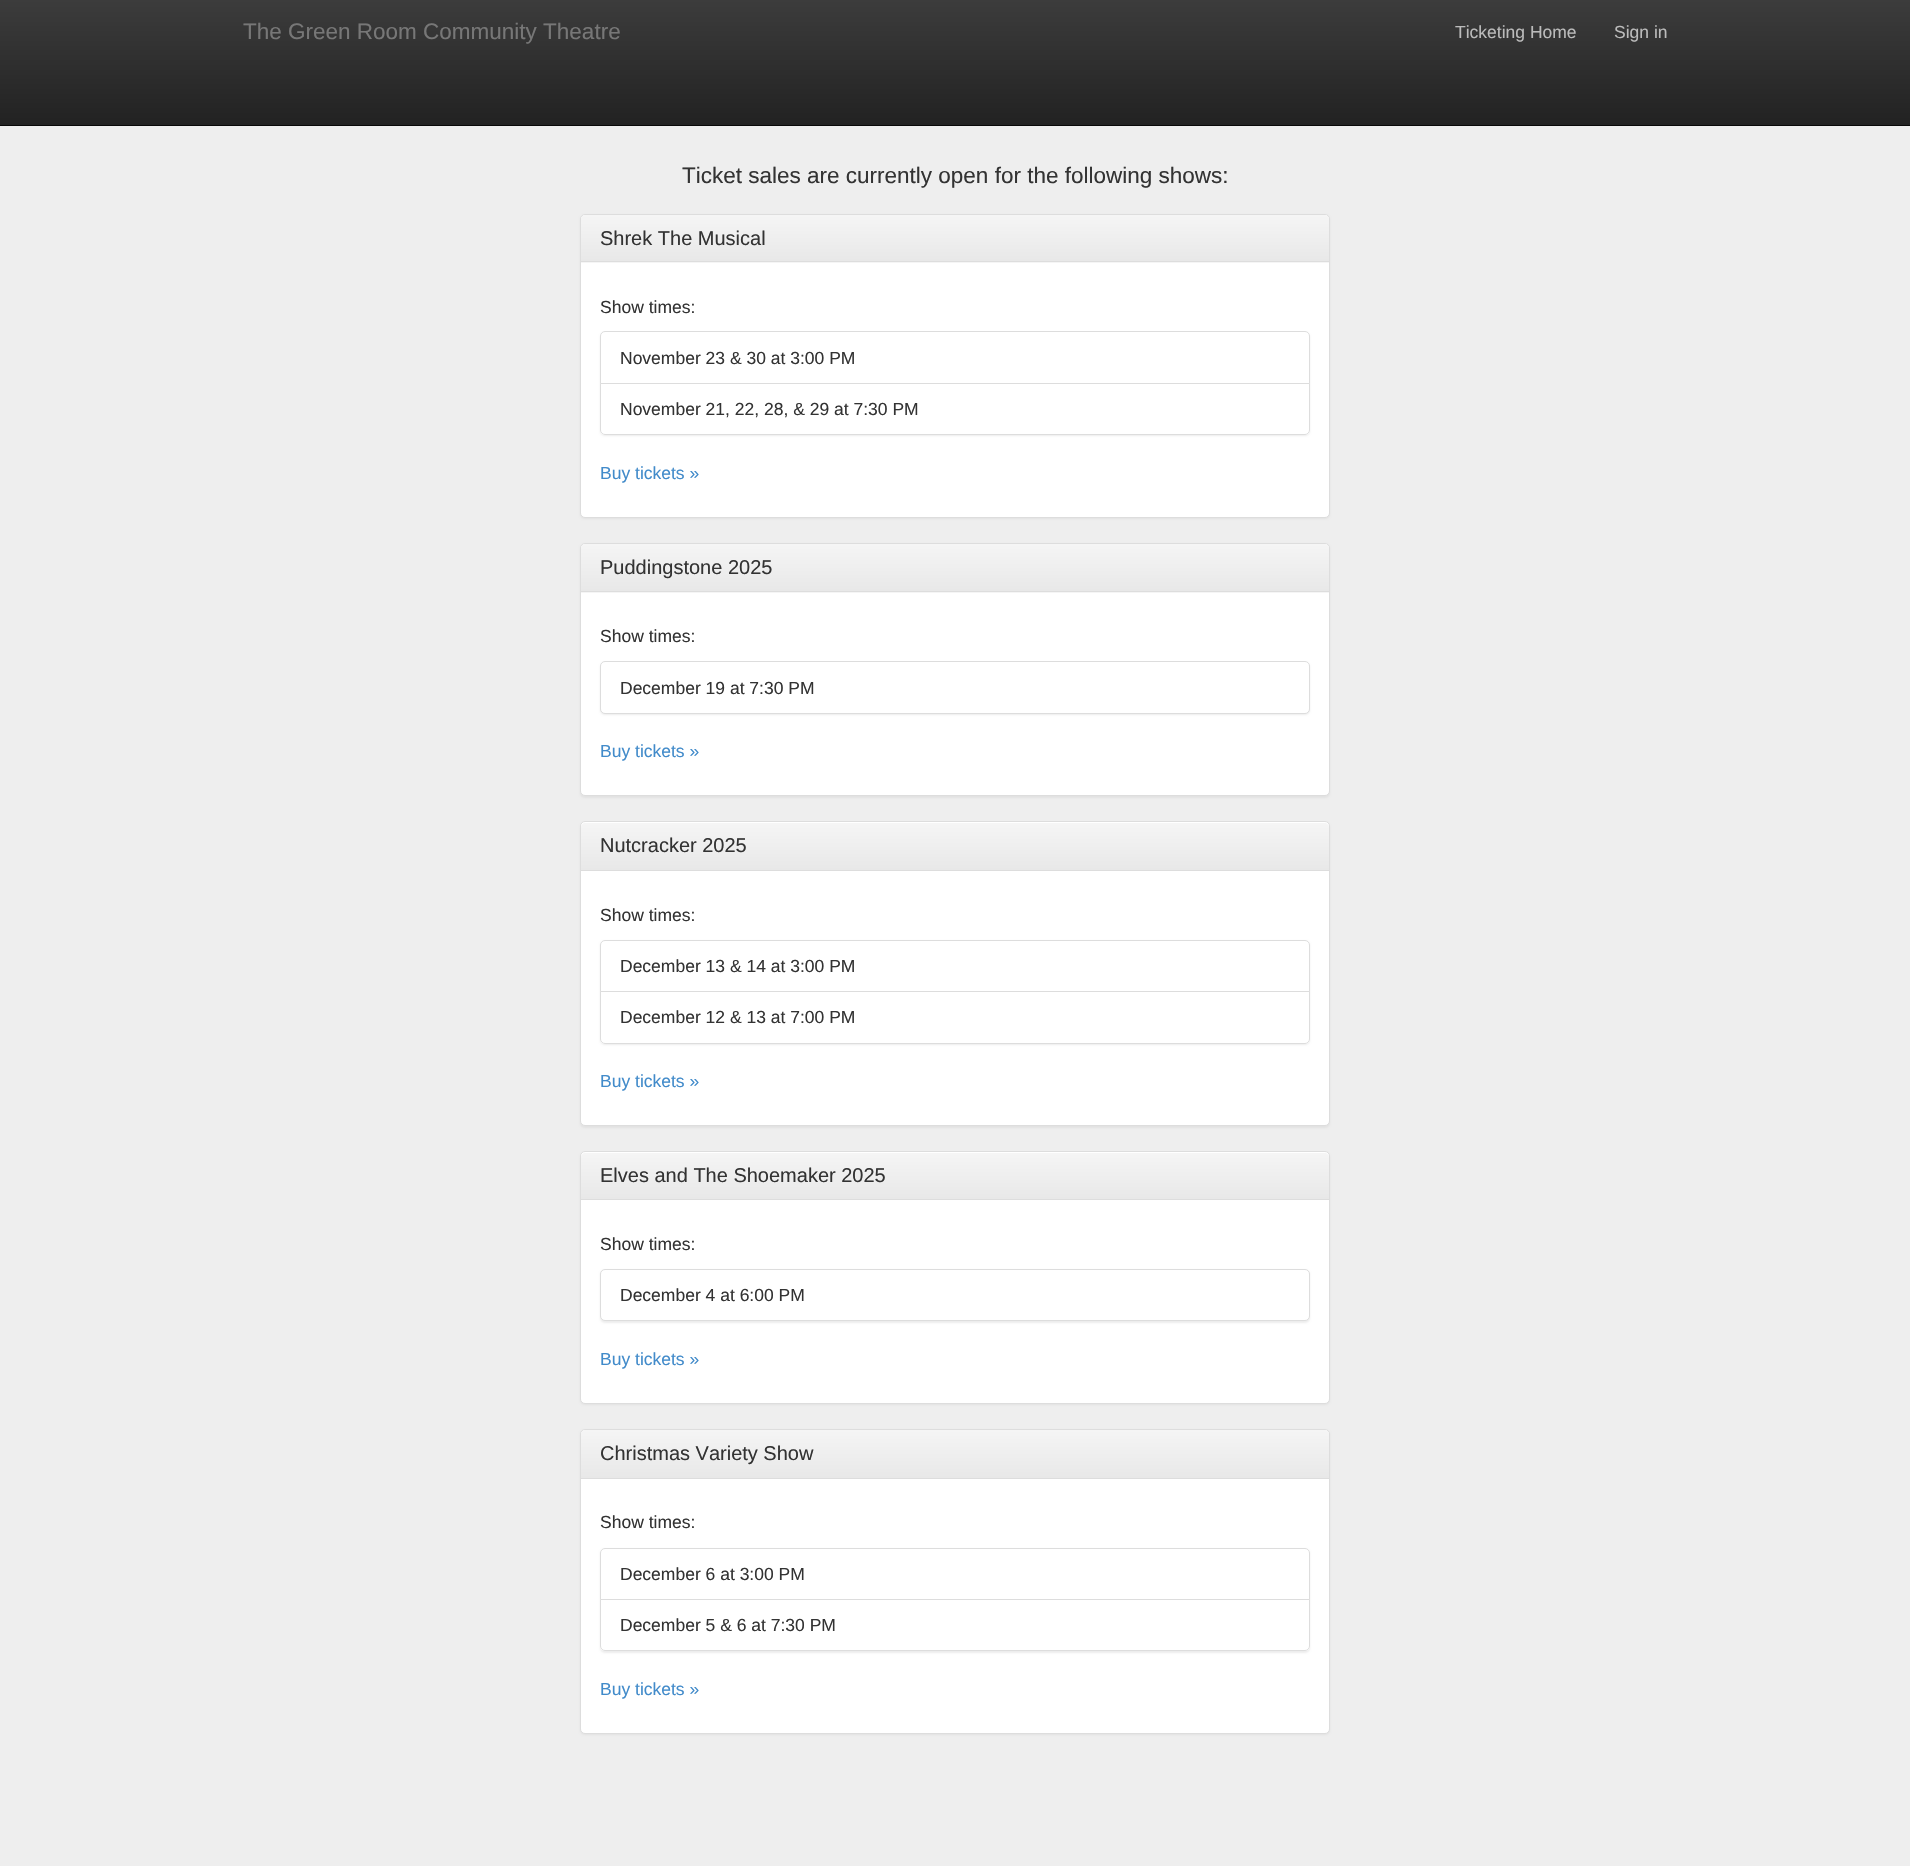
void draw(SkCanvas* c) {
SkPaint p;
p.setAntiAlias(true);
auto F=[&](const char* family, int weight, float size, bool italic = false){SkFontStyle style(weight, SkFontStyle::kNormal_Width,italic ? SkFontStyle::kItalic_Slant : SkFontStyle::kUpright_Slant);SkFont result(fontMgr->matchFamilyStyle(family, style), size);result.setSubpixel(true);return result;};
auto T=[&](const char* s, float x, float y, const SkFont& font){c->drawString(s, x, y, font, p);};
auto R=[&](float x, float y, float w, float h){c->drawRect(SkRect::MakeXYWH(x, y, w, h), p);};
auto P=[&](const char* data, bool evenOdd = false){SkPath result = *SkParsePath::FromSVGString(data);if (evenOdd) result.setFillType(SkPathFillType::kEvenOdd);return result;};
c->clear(0xffeeeeee);
{
const SkColor colors[] = {0xff3c3c3c,0xff222222};
const float stops[] = {0,1};
const SkPoint ends[] = {{955,0}, {955,125}};
p.setShader(SkGradientShader::MakeLinear(ends, colors, stops, 2, SkTileMode::kClamp));
p.setAlpha(255);
}
R(0,0,1910,125);
p.setShader(nullptr);
p.setColor(0xff080808);
R(0,125,1910,1);
auto f1 = F("Liberation Sans",400,22.5);
p.setColor(0xff777777);
T("The Green Room Community Theatre",243,39,f1);
auto f2 = F("Liberation Sans",400,17.5);
p.setColor(0xffbbbbbb);
T("Ticketing Home",1455,38,f2);
T("Sign in",1614,38,f2);
p.setColor(0xff333333);
T("Ticket sales are currently open for the following shows:",682,183,f1);
p.setColor(0x0d000000);
p.setMaskFilter(SkMaskFilter::MakeBlur(kNormal_SkBlurStyle, 1));
c->drawRoundRect(SkRect::MakeXYWH(580,215,750,304),5,5,p);
p.setMaskFilter(nullptr);
p.setColor(0xffffffff);
c->drawRoundRect(SkRect::MakeXYWH(580.5,214.5,749,303),4.5,4.5,p);
p.setStroke(true);
p.setStrokeWidth(1);
p.setColor(0xffdddddd);
c->drawRoundRect(SkRect::MakeXYWH(580.5,214.5,749,303),4.5,4.5,p);
p.setStroke(false);
p.setColor(0xfff5f5f5);
c->drawPath(P("M585 215h740c2 0 4 2 4 4v44h-748v-44c0-2 2-4 4-4z"),p);
{
const SkColor colors[] = {0xfff5f5f5,0xffe8e8e8};
const float stops[] = {0,1};
const SkPoint ends[] = {{955,215}, {955,261}};
p.setShader(SkGradientShader::MakeLinear(ends, colors, stops, 2, SkTileMode::kClamp));
p.setAlpha(255);
}
c->drawPath(P("M585 215h740c2 0 4 2 4 4v42h-748v-42c0-2 2-4 4-4z"),p);
p.setShader(nullptr);
p.setColor(0xffdddddd);
R(581,261,748,1);
auto f3 = F("Liberation Sans",400,20);
p.setColor(0xff333333);
T("Shrek The Musical",600,245,f3);
T("Show times:",600,313,f2);
c->save();
c->clipPath(P("M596 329h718v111h-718zm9 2h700c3 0 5 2 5 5v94c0 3-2 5-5 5h-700c-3 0-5-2-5-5v-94c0-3 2-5 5-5z",true),true);
p.setColor(0x12000000);
p.setMaskFilter(SkMaskFilter::MakeBlur(kNormal_SkBlurStyle, 1));
c->drawRoundRect(SkRect::MakeXYWH(600,333,710,103),5,5,p);
p.setMaskFilter(nullptr);
c->restore();
p.setStroke(true);
p.setColor(0xffdddddd);
c->drawPath(P("M605 331.5h700c2.5 0 4.5 2 4.5 4.5v47.5h-709v-47.5c0-2.5 2-4.5 4.5-4.5z"),p);
p.setStroke(false);
p.setColor(0xff333333);
T("November 23 & 30 at 3:00 PM",620,364,f2);
p.setColor(0xffffffff);
c->drawPath(P("M600.5 383.5h709v46.5c0 2.5-2 4.5-4.5 4.5h-700c-2.5 0-4.5-2-4.5-4.5z"),p);
p.setStroke(true);
p.setColor(0xffdddddd);
c->drawPath(P("M600.5 383.5h709v46.5c0 2.5-2 4.5-4.5 4.5h-700c-2.5 0-4.5-2-4.5-4.5z"),p);
p.setStroke(false);
p.setColor(0xff333333);
T("November 21, 22, 28, & 29 at 7:30 PM",620,415,f2);
p.setColor(0xff428bca);
T("Buy tickets »",600,479,f2);
p.setColor(0x0d000000);
p.setMaskFilter(SkMaskFilter::MakeBlur(kNormal_SkBlurStyle, 1));
c->drawRoundRect(SkRect::MakeXYWH(580,544,750,254),5,5,p);
p.setMaskFilter(nullptr);
p.setColor(0xffffffff);
c->drawRoundRect(SkRect::MakeXYWH(580.5,543.5,749,252),4.5,4.5,p);
p.setStroke(true);
p.setColor(0xffdddddd);
c->drawRoundRect(SkRect::MakeXYWH(580.5,543.5,749,252),4.5,4.5,p);
p.setStroke(false);
p.setColor(0xfff5f5f5);
c->drawPath(P("M585 544h740c2 0 4 2 4 4v45h-748v-45c0-2 2-4 4-4z"),p);
{
const SkColor colors[] = {0xfff5f5f5,0xffe8e8e8};
const float stops[] = {0,1};
const SkPoint ends[] = {{955,544}, {955,591}};
p.setShader(SkGradientShader::MakeLinear(ends, colors, stops, 2, SkTileMode::kClamp));
p.setAlpha(255);
}
c->drawPath(P("M585 544h740c2 0 4 2 4 4v43h-748v-43c0-2 2-4 4-4z"),p);
p.setShader(nullptr);
p.setColor(0xffdddddd);
R(581,591,748,1);
p.setColor(0xff333333);
T("Puddingstone 2025",600,574,f3);
T("Show times:",600,642,f2);
p.setColor(0x12000000);
p.setMaskFilter(SkMaskFilter::MakeBlur(kNormal_SkBlurStyle, 1));
c->drawRoundRect(SkRect::MakeXYWH(600,663,710,52),5,5,p);
p.setMaskFilter(nullptr);
p.setColor(0xffffffff);
c->drawRoundRect(SkRect::MakeXYWH(600.5,661.5,709,52),4.5,4.5,p);
p.setStroke(true);
p.setColor(0xffdddddd);
c->drawRoundRect(SkRect::MakeXYWH(600.5,661.5,709,52),4.5,4.5,p);
p.setStroke(false);
p.setColor(0xff333333);
T("December 19 at 7:30 PM",620,694,f2);
p.setColor(0xff428bca);
T("Buy tickets »",600,757,f2);
p.setColor(0x0d000000);
p.setMaskFilter(SkMaskFilter::MakeBlur(kNormal_SkBlurStyle, 1));
c->drawRoundRect(SkRect::MakeXYWH(580,823,750,305),5,5,p);
p.setMaskFilter(nullptr);
p.setColor(0xffffffff);
c->drawRoundRect(SkRect::MakeXYWH(580.5,821.5,749,304),4.5,4.5,p);
p.setStroke(true);
p.setColor(0xffdddddd);
c->drawRoundRect(SkRect::MakeXYWH(580.5,821.5,749,304),4.5,4.5,p);
p.setStroke(false);
{
const SkColor colors[] = {0xfff5f5f5,0xffe8e8e8};
const float stops[] = {0,1};
const SkPoint ends[] = {{955,823}, {955,870}};
p.setShader(SkGradientShader::MakeLinear(ends, colors, stops, 2, SkTileMode::kClamp));
p.setAlpha(255);
}
c->drawPath(P("M585 823h740c2 0 4 2 4 4v43h-748v-43c0-2 2-4 4-4z"),p);
p.setShader(nullptr);
p.setColor(0xffdddddd);
R(581,870,748,1);
p.setColor(0xff333333);
T("Nutcracker 2025",600,852,f3);
T("Show times:",600,921,f2);
c->save();
c->clipPath(P("M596 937h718v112h-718zm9 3h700c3 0 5 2 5 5v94c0 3-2 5-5 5h-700c-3 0-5-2-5-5v-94c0-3 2-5 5-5z",true),true);
p.setColor(0x12000000);
p.setMaskFilter(SkMaskFilter::MakeBlur(kNormal_SkBlurStyle, 1));
c->drawRoundRect(SkRect::MakeXYWH(600,941,710,104),5,5,p);
p.setMaskFilter(nullptr);
c->restore();
p.setStroke(true);
p.setColor(0xffdddddd);
c->drawPath(P("M605 940.5h700c2.5 0 4.5 2 4.5 4.5v47.5h-709v-47.5c0-2.5 2-4.5 4.5-4.5z"),p);
p.setStroke(false);
p.setColor(0xff333333);
T("December 13 & 14 at 3:00 PM",620,972,f2);
p.setColor(0xffffffff);
c->drawPath(P("M600.5 991.5h709v47.5c0 2.5-2 4.5-4.5 4.5h-700c-2.5 0-4.5-2-4.5-4.5z"),p);
p.setStroke(true);
p.setColor(0xffdddddd);
c->drawPath(P("M600.5 991.5h709v47.5c0 2.5-2 4.5-4.5 4.5h-700c-2.5 0-4.5-2-4.5-4.5z"),p);
p.setStroke(false);
p.setColor(0xff333333);
T("December 12 & 13 at 7:00 PM",620,1023,f2);
p.setColor(0xff428bca);
T("Buy tickets »",600,1087,f2);
p.setColor(0x0d000000);
p.setMaskFilter(SkMaskFilter::MakeBlur(kNormal_SkBlurStyle, 1));
c->drawRoundRect(SkRect::MakeXYWH(580,1153,750,252),5,5,p);
p.setMaskFilter(nullptr);
p.setColor(0xffffffff);
c->drawRoundRect(SkRect::MakeXYWH(580.5,1151.5,749,252),4.5,4.5,p);
p.setStroke(true);
p.setColor(0xffdddddd);
c->drawRoundRect(SkRect::MakeXYWH(580.5,1151.5,749,252),4.5,4.5,p);
p.setStroke(false);
{
const SkColor colors[] = {0xfff5f5f5,0xffe8e8e8};
const float stops[] = {0,1};
const SkPoint ends[] = {{955,1153}, {955,1199}};
p.setShader(SkGradientShader::MakeLinear(ends, colors, stops, 2, SkTileMode::kClamp));
p.setAlpha(255);
}
c->drawPath(P("M585 1153h740c2 0 4 2 4 4v42h-748v-42c0-2 2-4 4-4z"),p);
p.setShader(nullptr);
p.setColor(0xffdddddd);
R(581,1199,748,1);
p.setColor(0xff333333);
T("Elves and The Shoemaker 2025",600,1182,f3);
T("Show times:",600,1250,f2);
p.setColor(0x12000000);
p.setMaskFilter(SkMaskFilter::MakeBlur(kNormal_SkBlurStyle, 1));
c->drawRoundRect(SkRect::MakeXYWH(600,1270,710,53),5,5,p);
p.setMaskFilter(nullptr);
p.setColor(0xffffffff);
c->drawRoundRect(SkRect::MakeXYWH(600.5,1269.5,709,51),4.5,4.5,p);
p.setStroke(true);
p.setColor(0xffdddddd);
c->drawRoundRect(SkRect::MakeXYWH(600.5,1269.5,709,51),4.5,4.5,p);
p.setStroke(false);
p.setColor(0xff333333);
T("December 4 at 6:00 PM",620,1301,f2);
p.setColor(0xff428bca);
T("Buy tickets »",600,1365,f2);
p.setColor(0x0d000000);
p.setMaskFilter(SkMaskFilter::MakeBlur(kNormal_SkBlurStyle, 1));
c->drawRoundRect(SkRect::MakeXYWH(580,1430,750,305),5,5,p);
p.setMaskFilter(nullptr);
p.setColor(0xffffffff);
c->drawRoundRect(SkRect::MakeXYWH(580.5,1429.5,749,304),4.5,4.5,p);
p.setStroke(true);
p.setColor(0xffdddddd);
c->drawRoundRect(SkRect::MakeXYWH(580.5,1429.5,749,304),4.5,4.5,p);
p.setStroke(false);
{
const SkColor colors[] = {0xfff5f5f5,0xffe8e8e8};
const float stops[] = {0,1};
const SkPoint ends[] = {{955,1430}, {955,1478}};
p.setShader(SkGradientShader::MakeLinear(ends, colors, stops, 2, SkTileMode::kClamp));
p.setAlpha(255);
}
c->drawPath(P("M585 1430h740c2 0 4 2 4 4v44h-748v-44c0-2 2-4 4-4z"),p);
p.setShader(nullptr);
p.setColor(0xffdddddd);
R(581,1478,748,1);
p.setColor(0xff333333);
T("Christmas Variety Show",600,1460,f3);
T("Show times:",600,1528,f2);
c->save();
c->clipPath(P("M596 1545h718v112h-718zm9 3h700c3 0 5 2 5 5v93c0 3-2 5-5 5h-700c-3 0-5-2-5-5v-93c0-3 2-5 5-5z",true),true);
p.setColor(0x12000000);
p.setMaskFilter(SkMaskFilter::MakeBlur(kNormal_SkBlurStyle, 1));
c->drawRoundRect(SkRect::MakeXYWH(600,1549,710,104),5,5,p);
p.setMaskFilter(nullptr);
c->restore();
p.setStroke(true);
p.setColor(0xffdddddd);
c->drawPath(P("M605 1548.5h700c2.5 0 4.5 2 4.5 4.5v46.5h-709v-46.5c0-2.5 2-4.5 4.5-4.5z"),p);
p.setStroke(false);
p.setColor(0xff333333);
T("December 6 at 3:00 PM",620,1580,f2);
p.setColor(0xffffffff);
c->drawPath(P("M600.5 1599.5h709v46.5c0 2.5-2 4.5-4.5 4.5h-700c-2.5 0-4.5-2-4.5-4.5z"),p);
p.setStroke(true);
p.setColor(0xffdddddd);
c->drawPath(P("M600.5 1599.5h709v46.5c0 2.5-2 4.5-4.5 4.5h-700c-2.5 0-4.5-2-4.5-4.5z"),p);
p.setStroke(false);
p.setColor(0xff333333);
T("December 5 & 6 at 7:30 PM",620,1631,f2);
p.setColor(0xff428bca);
T("Buy tickets »",600,1695,f2);
}
